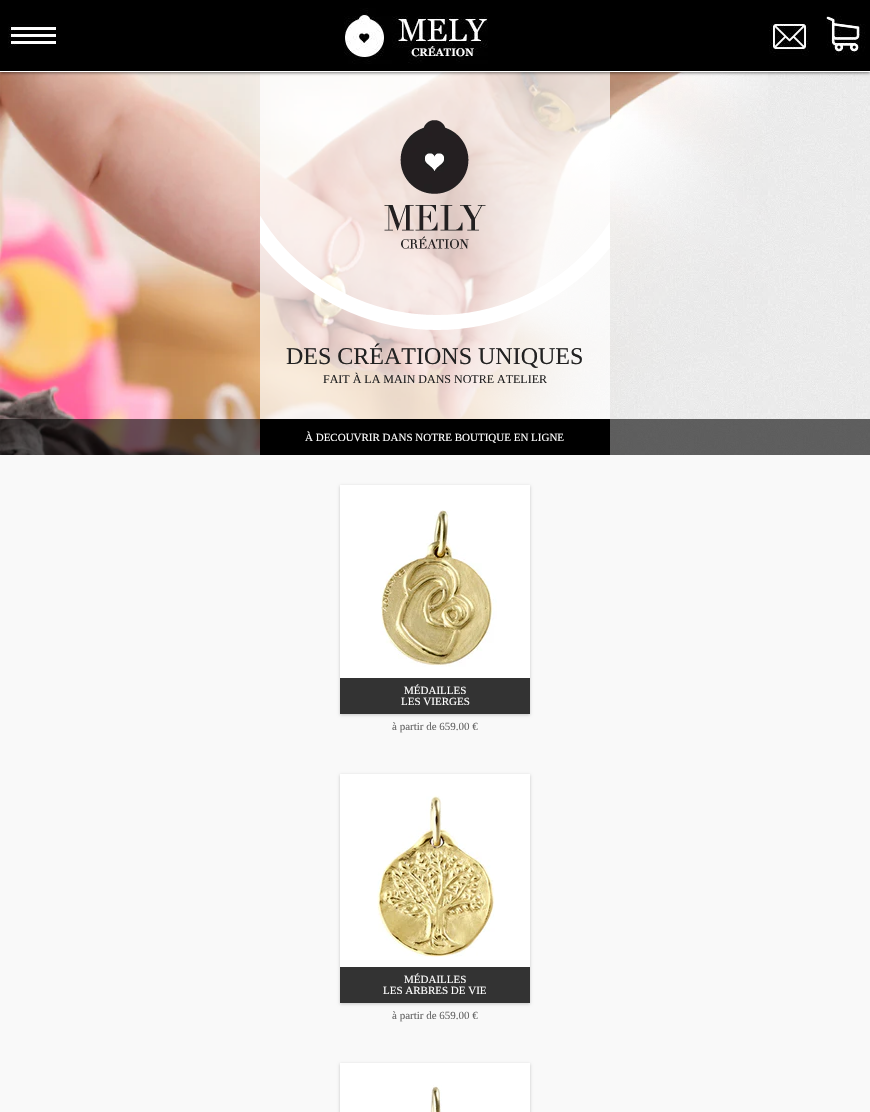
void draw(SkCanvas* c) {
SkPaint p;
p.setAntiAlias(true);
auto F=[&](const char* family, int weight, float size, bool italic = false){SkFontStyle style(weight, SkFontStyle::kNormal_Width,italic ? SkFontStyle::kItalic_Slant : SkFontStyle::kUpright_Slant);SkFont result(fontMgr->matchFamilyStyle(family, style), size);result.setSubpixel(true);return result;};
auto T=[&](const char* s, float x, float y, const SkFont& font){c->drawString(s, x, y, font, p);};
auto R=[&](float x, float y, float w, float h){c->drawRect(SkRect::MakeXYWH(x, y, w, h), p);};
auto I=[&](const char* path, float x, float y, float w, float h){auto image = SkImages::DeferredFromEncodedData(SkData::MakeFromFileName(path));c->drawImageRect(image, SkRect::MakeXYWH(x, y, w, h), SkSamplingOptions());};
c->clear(0xfff9f9f9);
I("5.png",0,72,870,383);
I("6.png",0,72,768,383);
p.setColor(0xb3ffffff);
R(260,72,350,347);
p.setColor(0x80000000);
p.setMaskFilter(SkMaskFilter::MakeBlur(kNormal_SkBlurStyle, 1.5));
c->drawRect(SkRect::MakeXYWH(0,1,870,72),p);
p.setMaskFilter(nullptr);
p.setColor(0xff000000);
R(0,0,870,71);
p.setColor(0xffffffff);
R(0,71,870,1);
I("1.png",8,24,48,24);
I("2.png",344,8,144,56);
I("3.png",769,24,40,32);
I("4.png",826,16,40,40);
I("7.png",260,216,350,114);
I("8.png",384,120,102,129);
auto f1 = F("Liberation Serif",400,24);
p.setColor(0xff222222);
T("DES CRÉATIONS UNIQUES",286,364,f1);
auto f2 = F("Liberation Serif",400,12);
T("FAIT À LA MAIN DANS NOTRE ATELIER",323,383,f2);
p.setColor(0x99000000);
R(0,419,870,36);
p.setColor(0xff000000);
R(260,419,350,36);
auto f3 = F("Liberation Serif",400,11);
p.setColor(0xffffffff);
T("À DECOUVRIR DANS NOTRE BOUTIQUE EN LIGNE",305,441,f3);
p.setColor(0x33000000);
p.setMaskFilter(SkMaskFilter::MakeBlur(kNormal_SkBlurStyle, 1.5));
c->drawRect(SkRect::MakeXYWH(340,486,190,229),p);
p.setMaskFilter(nullptr);
p.setColor(0xffffffff);
R(340,485,190,193);
I("9.png",380,510,117,157);
p.setColor(0xff333333);
R(340,678,190,36);
p.setColor(0xffffffff);
T("MÉDAILLES",404,694,f3);
T("LES VIERGES",401,705,f3);
p.setColor(0xff666666);
T("à partir de 659.00 €",392,730,f3);
p.setColor(0x33000000);
p.setMaskFilter(SkMaskFilter::MakeBlur(kNormal_SkBlurStyle, 1.5));
c->drawRect(SkRect::MakeXYWH(340,775,190,229),p);
p.setMaskFilter(nullptr);
p.setColor(0xffffffff);
R(340,774,190,193);
I("10.png",377,795,118,162);
p.setColor(0xff333333);
R(340,967,190,36);
p.setColor(0xffffffff);
T("MÉDAILLES",404,983,f3);
T("LES ARBRES DE VIE",383,994,f3);
p.setColor(0xff666666);
T("à partir de 659.00 €",392,1019,f3);
p.setColor(0x33000000);
p.setMaskFilter(SkMaskFilter::MakeBlur(kNormal_SkBlurStyle, 1.5));
c->drawRect(SkRect::MakeXYWH(340,1064,190,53),p);
p.setMaskFilter(nullptr);
p.setColor(0xffffffff);
R(340,1063,190,49);
I("11.png",430,1085,12,27);
}
